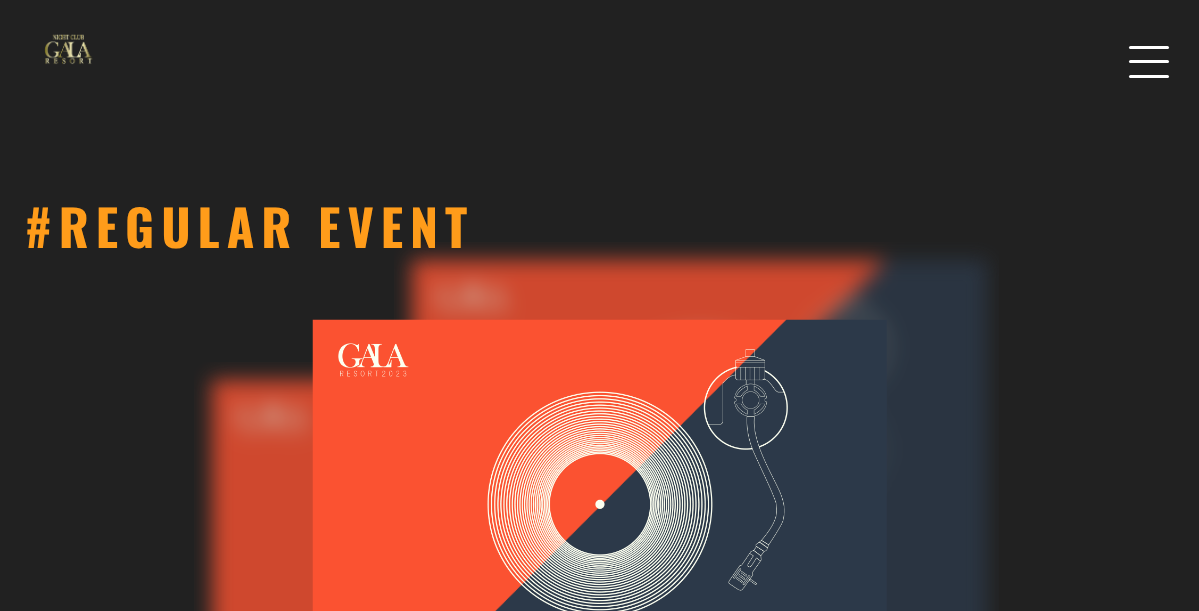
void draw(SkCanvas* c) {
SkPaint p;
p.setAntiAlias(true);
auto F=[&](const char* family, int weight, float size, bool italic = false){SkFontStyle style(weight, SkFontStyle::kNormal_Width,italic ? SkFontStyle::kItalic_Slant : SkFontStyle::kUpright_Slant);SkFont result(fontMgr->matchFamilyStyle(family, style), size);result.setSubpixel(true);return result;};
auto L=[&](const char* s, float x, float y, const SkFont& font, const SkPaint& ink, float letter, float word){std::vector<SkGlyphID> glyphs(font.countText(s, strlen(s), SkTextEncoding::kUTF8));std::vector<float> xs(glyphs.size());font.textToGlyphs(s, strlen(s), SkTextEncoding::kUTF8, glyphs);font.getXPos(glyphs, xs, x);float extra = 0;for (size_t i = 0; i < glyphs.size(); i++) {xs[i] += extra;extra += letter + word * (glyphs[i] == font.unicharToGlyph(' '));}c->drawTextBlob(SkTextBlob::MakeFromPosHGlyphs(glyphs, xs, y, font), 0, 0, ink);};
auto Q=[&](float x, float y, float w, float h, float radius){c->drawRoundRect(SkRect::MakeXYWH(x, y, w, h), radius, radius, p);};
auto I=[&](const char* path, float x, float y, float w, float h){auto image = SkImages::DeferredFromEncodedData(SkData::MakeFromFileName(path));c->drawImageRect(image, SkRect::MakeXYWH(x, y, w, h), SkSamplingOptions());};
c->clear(0xff212121);
I("1.png",44,34,49,31);
p.setColor(0xffffffff);
Q(1129,46,40,3,1.5);
Q(1129,60,40,3,1.5);
Q(1129,75,40,3,1.5);
I("2.png",394,242,605,369);
auto f1 = F("Oswald",700,50);
p.setColor(0xffff9c1a);
L("#REGULAR EVENT",25,248,f1,p,7,0);
I("3.png",194,362,119,249);
I("4.png",312,319,575,292);
}
